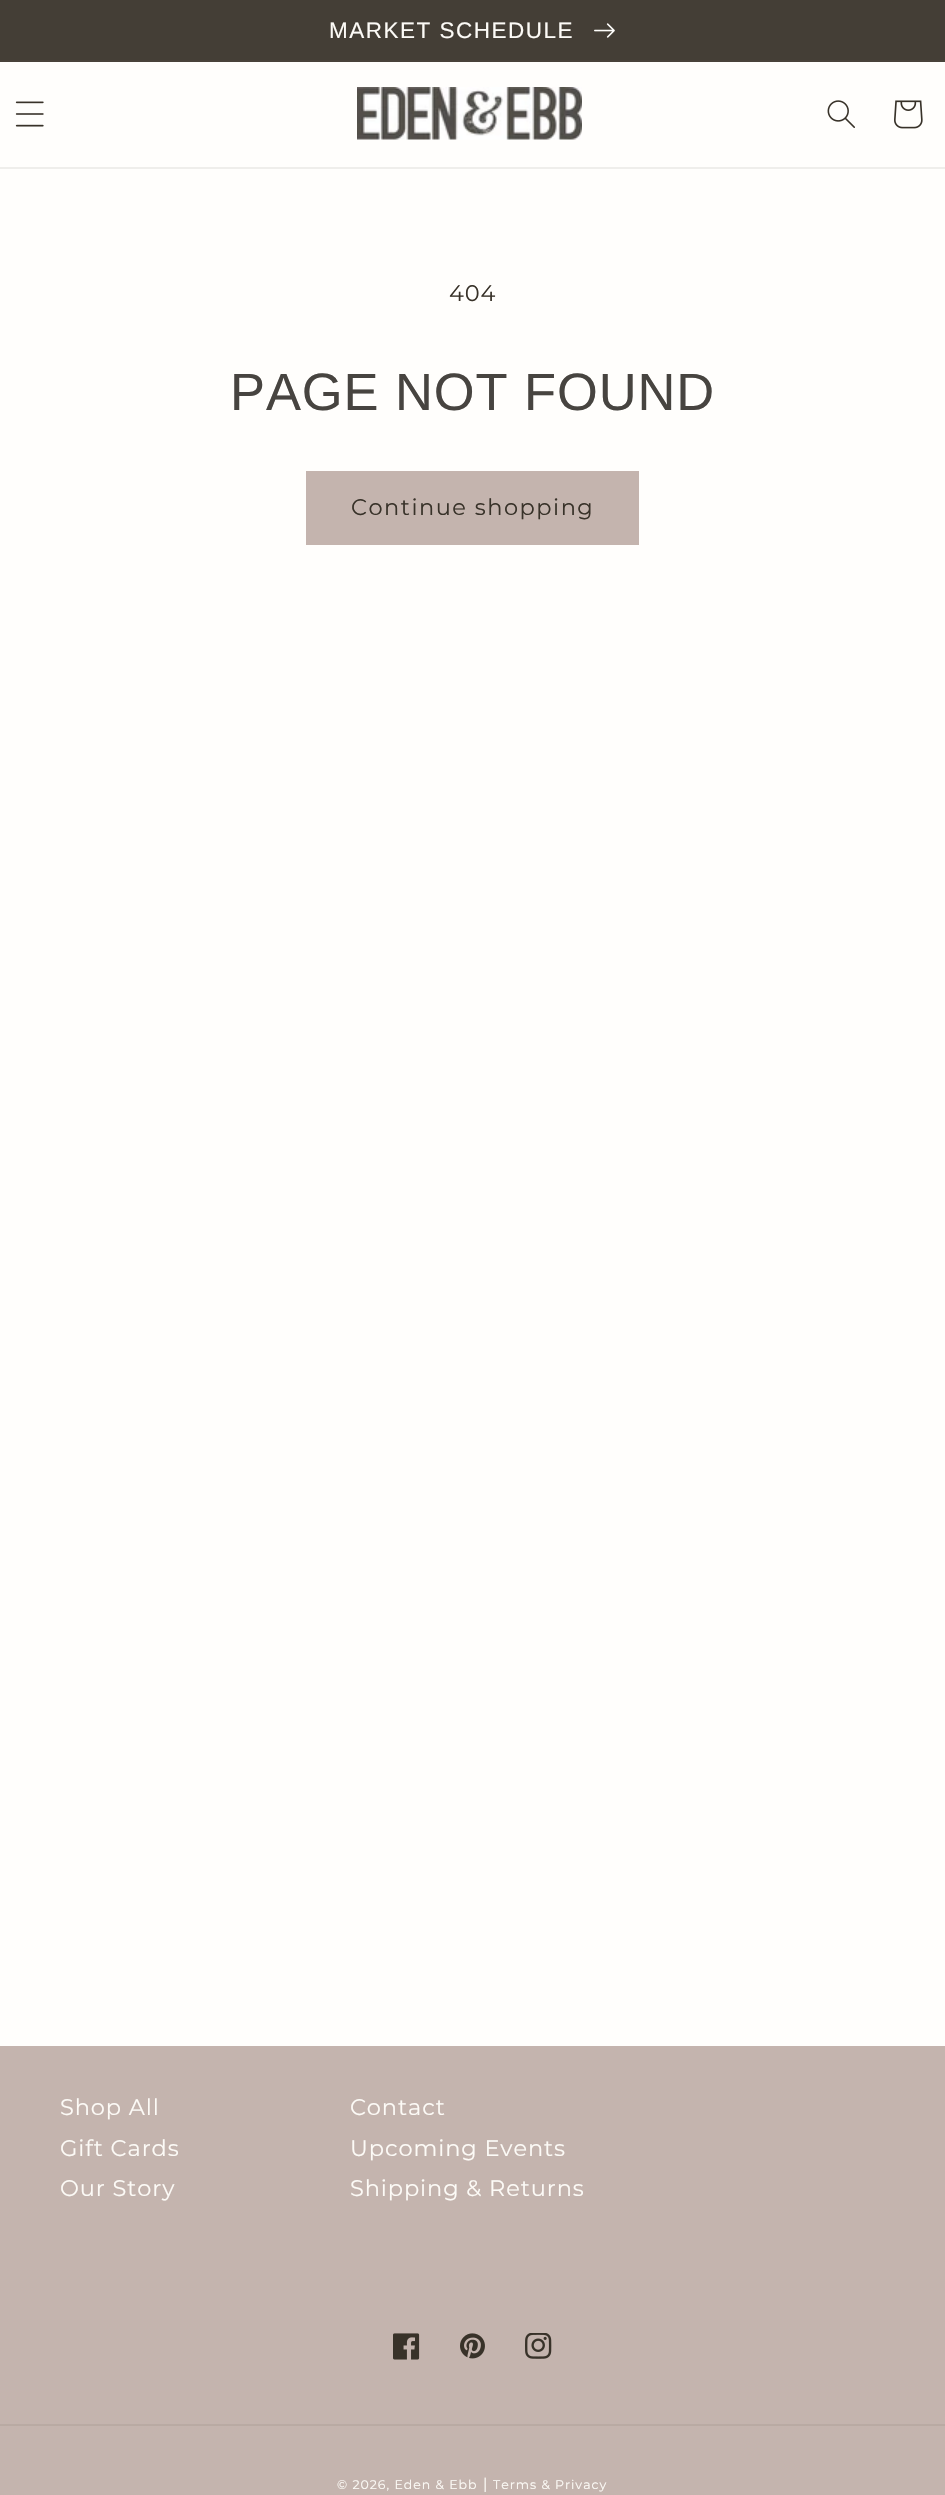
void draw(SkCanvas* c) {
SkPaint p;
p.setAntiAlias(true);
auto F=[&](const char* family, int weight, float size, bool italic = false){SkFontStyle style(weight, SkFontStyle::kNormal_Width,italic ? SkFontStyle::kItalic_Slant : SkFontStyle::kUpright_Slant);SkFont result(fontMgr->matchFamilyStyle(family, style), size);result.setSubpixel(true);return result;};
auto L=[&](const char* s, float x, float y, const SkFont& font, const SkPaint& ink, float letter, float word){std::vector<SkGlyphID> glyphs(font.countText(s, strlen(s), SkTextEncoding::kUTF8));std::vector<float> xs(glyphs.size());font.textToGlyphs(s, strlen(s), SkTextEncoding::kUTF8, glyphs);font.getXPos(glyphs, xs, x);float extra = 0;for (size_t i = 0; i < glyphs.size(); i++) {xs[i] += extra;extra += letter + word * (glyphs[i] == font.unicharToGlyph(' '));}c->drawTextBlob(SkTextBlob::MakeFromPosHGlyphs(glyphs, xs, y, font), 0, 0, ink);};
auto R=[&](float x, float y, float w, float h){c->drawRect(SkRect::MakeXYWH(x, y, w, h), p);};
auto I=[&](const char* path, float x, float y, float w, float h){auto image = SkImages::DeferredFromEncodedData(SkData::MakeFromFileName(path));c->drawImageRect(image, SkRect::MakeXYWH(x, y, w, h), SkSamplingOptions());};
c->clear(0xfffffefc);
p.setColor(0xff48423a);
R(0,60,945,2);
p.setColor(0xff443e36);
R(0,0,945,60);
auto f1 = F("Liberation Sans",400,22.5);
p.setColor(0xfffdfbf7);
L("MARKET SCHEDULE",329,38,f1,p,1.5,0);
I("1.png",594,23,21,15);
p.setColor(0xffefeeeb);
R(0,167,945,2);
I("2.png",15,101,29,26);
I("3.png",357,87,225,53);
I("4.png",827,100,28,28);
I("5.png",894,100,29,29);
auto f2 = F("Montserrat",400,22.5);
p.setColor(0xff383229);
L("404",449,301,f2,p,.9,0);
auto f3 = F("Liberation Sans",400,52.5);
p.setColor(0xff474440);
L("PAGE NOT FOUND",230,410,f3,p,.9,0);
p.setColor(0xffc4b4ae);
R(306,471,333,74);
p.setColor(0xff383229);
L("Continue shopping",351,515,f2,p,1.5,0);
p.setColor(0xffc4b4ae);
R(0,2046,945,449);
p.setColor(0xfffdfbf7);
L("Shop All",60,2115,f2,p,.9,0);
L("Gift Cards",60,2156,f2,p,.9,0);
L("Our Story",60,2196,f2,p,.9,0);
L("Contact",350,2115,f2,p,.9,0);
L("Upcoming Events",350,2156,f2,p,.9,0);
L("Shipping & Returns",350,2196,f2,p,.9,0);
I("6.png",393,2333,27,27);
I("7.png",460,2333,25,26);
I("8.png",525,2333,27,26);
p.setColor(0xffb9aaa3);
R(0,2424,945,2);
auto f4 = F("Montserrat",400,12.5);
p.setColor(0xfffdfbf7);
L("© 2026, Eden & Ebb",337,2489,f4,p,1,0);
auto f5 = F("Montserrat",400,15);
L("|",483,2489,f5,p,1,0);
L("Terms & Privacy",493,2489,f4,p,1,0);
}
